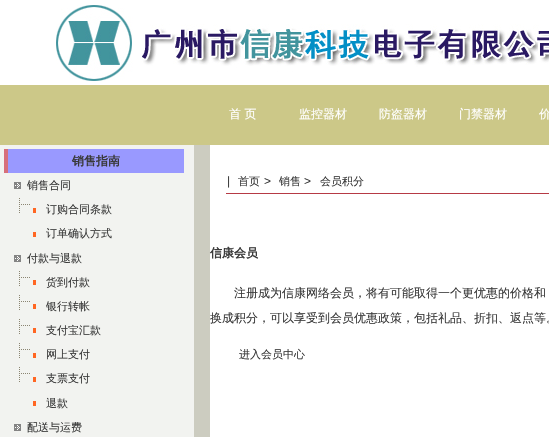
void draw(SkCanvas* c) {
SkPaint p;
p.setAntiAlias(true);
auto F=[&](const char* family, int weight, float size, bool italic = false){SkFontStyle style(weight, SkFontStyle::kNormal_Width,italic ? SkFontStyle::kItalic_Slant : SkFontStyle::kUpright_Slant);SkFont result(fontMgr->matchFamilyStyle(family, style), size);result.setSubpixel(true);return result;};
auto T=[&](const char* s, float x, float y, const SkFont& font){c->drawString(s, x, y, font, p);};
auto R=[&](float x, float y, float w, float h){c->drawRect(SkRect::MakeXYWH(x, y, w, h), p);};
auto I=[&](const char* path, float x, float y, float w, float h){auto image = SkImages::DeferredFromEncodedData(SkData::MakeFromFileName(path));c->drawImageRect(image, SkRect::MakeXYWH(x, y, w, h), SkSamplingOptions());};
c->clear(0xffccccc0);
p.setColor(0xffffffff);
R(0,0,549,85);
I("1.png",56,5,493,76);
p.setColor(0xffccc888);
R(0,85,549,60);
auto f1 = F("WenQuanYi Zen Hei",500,12);
p.setColor(0xffffffff);
T("首 页",229,118,f1);
T("监控器材",299,118,f1);
T("防盗器材",379,118,f1);
T("门禁器材",459,118,f1);
T("价",539,118,f1);
p.setColor(0xfff2f3f0);
R(0,145,194,292);
p.setColor(0xffd76f7a);
R(4,149,4,24);
p.setColor(0xff9999ff);
R(8,149,176,24);
auto f2 = F("WenQuanYi Zen Hei",700,12);
p.setColor(0xff393939);
T("销售指南",72,165,f2);
I("2.png",14,182,7,7);
auto f3 = F("WenQuanYi Zen Hei",500,11);
T("销售合同",27,189,f3);
I("3.png",19,198,11,15);
p.setColor(0xffff6622);
R(33,208,3,5);
p.setColor(0xff393939);
T("订购合同条款",46,213,f3);
p.setColor(0xffff6622);
R(33,232,3,5);
p.setColor(0xff393939);
T("订单确认方式",46,237,f3);
I("2.png",14,255,7,7);
T("付款与退款",27,262,f3);
I("3.png",19,271,11,15);
p.setColor(0xffff6622);
R(33,280,3,5);
p.setColor(0xff393939);
T("货到付款",46,286,f3);
I("3.png",19,295,11,15);
p.setColor(0xffff6622);
R(33,304,3,5);
p.setColor(0xff393939);
T("银行转帐",46,310,f3);
I("3.png",19,319,11,15);
p.setColor(0xffff6622);
R(33,328,3,5);
p.setColor(0xff393939);
T("支付宝汇款",46,334,f3);
I("3.png",19,343,11,15);
p.setColor(0xffff6622);
R(33,353,3,5);
p.setColor(0xff393939);
T("网上支付",46,358,f3);
I("3.png",19,367,11,15);
p.setColor(0xffff6622);
R(33,377,3,5);
p.setColor(0xff393939);
T("支票支付",46,382,f3);
p.setColor(0xffff6622);
R(33,401,3,5);
p.setColor(0xff393939);
T("退款",46,407,f3);
I("2.png",14,424,7,7);
T("配送与运费",27,431,f3);
p.setColor(0xffffffff);
R(210,145,339,292);
auto f4 = F("Liberation Sans",400,12);
p.setColor(0xff393939);
T("|",227,185,f4);
T("首页",238,185,f3);
T(">",264,185,f4);
T("销售",279,185,f3);
T(">",304,185,f4);
T("会员积分",320,185,f3);
p.setColor(0xffb63a45);
R(226,193,323,1);
p.setColor(0xff393939);
T("信康会员",210,257,f2);
T("注册成为信康网络会员，将有可能取得一个更优惠的价格和",234,297,f1);
T("换成积分，可以享受到会员优惠政策，包括礼品、折扣、返点等。",210,322,f1);
T("进入会员中心",239,358,f3);
}
